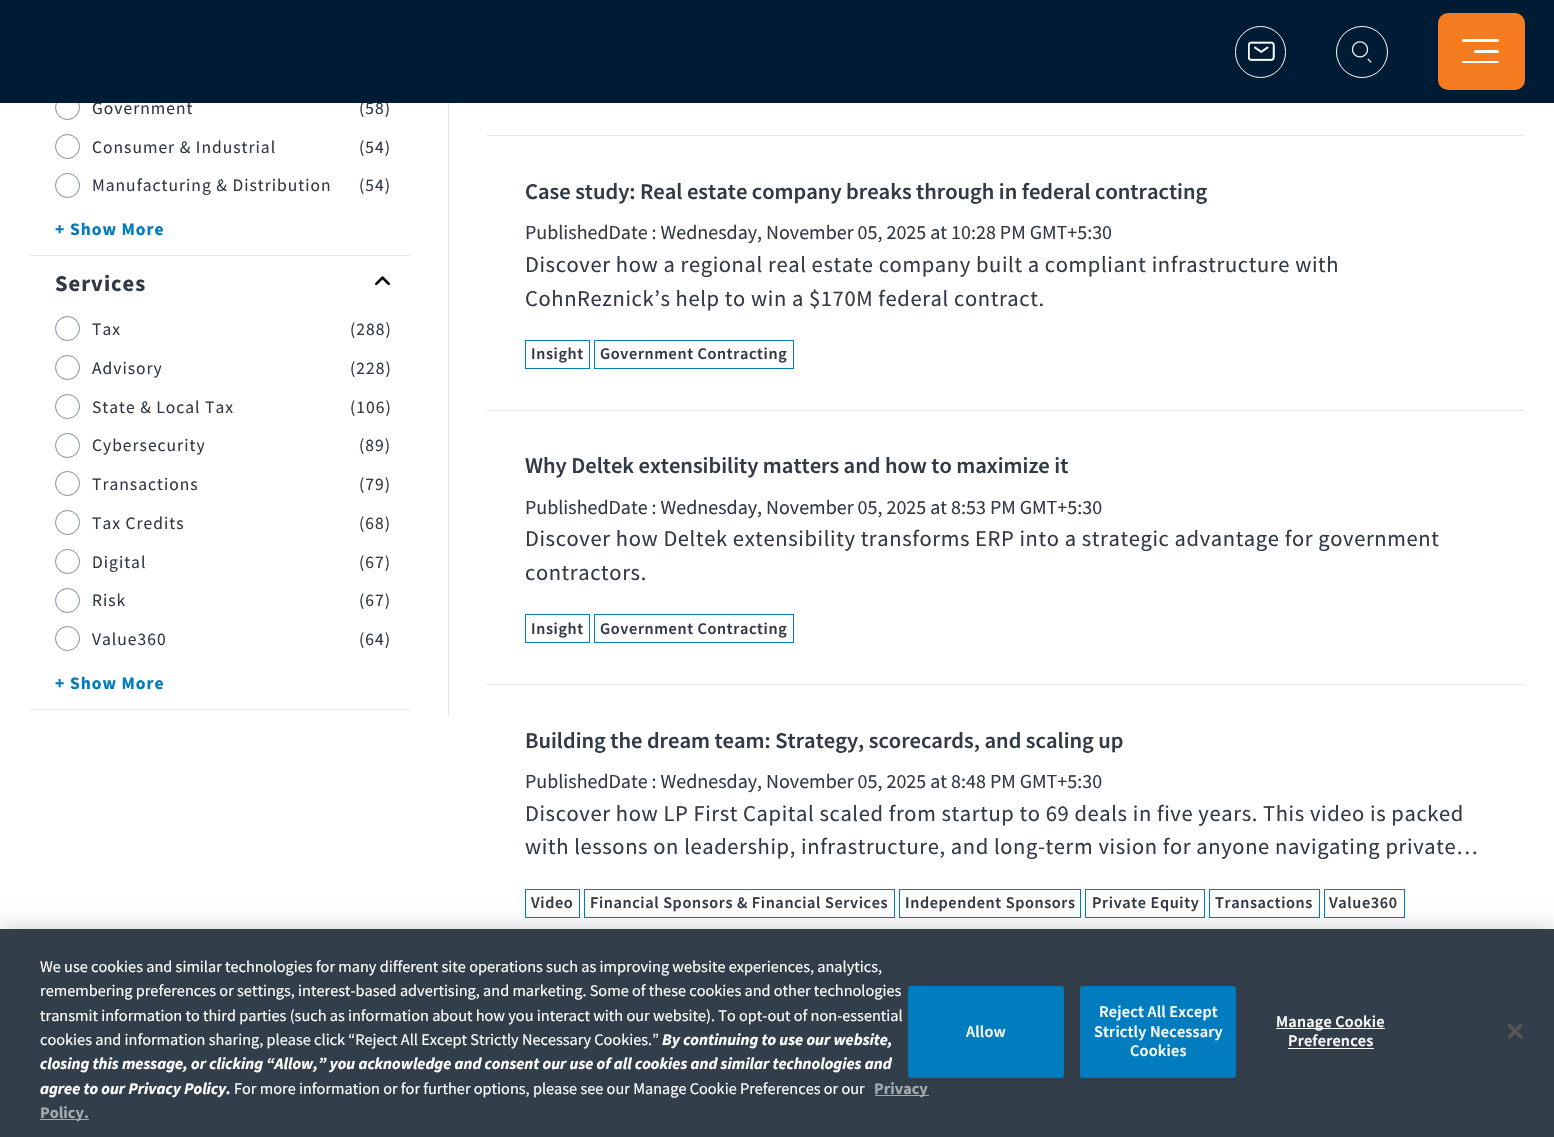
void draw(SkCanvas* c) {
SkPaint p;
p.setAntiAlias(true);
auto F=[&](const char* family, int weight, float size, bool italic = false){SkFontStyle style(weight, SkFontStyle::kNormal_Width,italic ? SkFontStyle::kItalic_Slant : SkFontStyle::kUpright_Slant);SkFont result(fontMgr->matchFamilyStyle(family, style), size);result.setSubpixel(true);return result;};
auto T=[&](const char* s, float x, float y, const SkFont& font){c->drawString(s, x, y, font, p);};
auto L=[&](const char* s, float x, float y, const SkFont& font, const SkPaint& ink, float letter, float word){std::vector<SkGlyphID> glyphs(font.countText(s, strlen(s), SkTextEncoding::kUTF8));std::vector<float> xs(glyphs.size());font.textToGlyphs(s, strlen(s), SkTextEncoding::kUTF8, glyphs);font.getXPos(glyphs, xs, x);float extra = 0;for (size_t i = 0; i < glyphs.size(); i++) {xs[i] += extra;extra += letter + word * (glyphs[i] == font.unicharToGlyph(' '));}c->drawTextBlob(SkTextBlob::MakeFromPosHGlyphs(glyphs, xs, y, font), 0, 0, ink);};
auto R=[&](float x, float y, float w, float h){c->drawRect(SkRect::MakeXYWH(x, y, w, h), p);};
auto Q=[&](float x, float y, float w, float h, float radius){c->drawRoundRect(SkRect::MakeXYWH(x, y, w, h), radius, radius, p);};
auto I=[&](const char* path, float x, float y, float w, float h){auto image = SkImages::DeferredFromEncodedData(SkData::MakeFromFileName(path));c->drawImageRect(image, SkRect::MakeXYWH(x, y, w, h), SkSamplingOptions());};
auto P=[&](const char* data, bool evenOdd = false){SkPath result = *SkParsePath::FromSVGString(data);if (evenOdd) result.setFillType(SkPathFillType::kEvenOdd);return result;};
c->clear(0xffffffff);
p.setStroke(true);
p.setStrokeWidth(1);
p.setColor(0xff7e8c9a);
c->drawCircle(67.5,107.5,12,p);
auto f1 = F("Source Sans Pro",400,17.5);
p.setStroke(false);
p.setColor(0xff313a45);
L("Government",92,114,f1,p,1,0);
L("(58)",359,114,f1,p,1,0);
p.setColor(0xff001b34);
R(0,0,1554,103);
p.setStroke(true);
p.setColor(0xffffffff);
c->drawRoundRect(SkRect::MakeXYWH(1235.5,26.5,50,51),25,25,p);
I("1.png",1248,41,27,20);
c->drawCircle(1362,52,25.5,p);
I("2.png",1351,41,21,22);
p.setStroke(false);
p.setColor(0xfff57b20);
Q(1438,13,87,77,10);
p.setColor(0xffffffff);
Q(1462,39,37,3,1.5);
Q(1474,50,25,3,1.5);
Q(1462,61,37,2,1);
p.setColor(0xffe2e4e6);
R(448,103,1,613);
R(30,255,380,1);
p.setStroke(true);
p.setColor(0xff7e8c9a);
c->drawCircle(67.5,146.5,12,p);
p.setStroke(false);
p.setColor(0xff313a45);
L("Consumer & Industrial",92,153,f1,p,1,0);
L("(54)",359,153,f1,p,1,0);
p.setStroke(true);
p.setColor(0xff7e8c9a);
c->drawCircle(67.5,185.5,12,p);
p.setStroke(false);
p.setColor(0xff313a45);
L("Manufacturing & Distribution",92,191,f1,p,1,0);
L("(54)",359,191,f1,p,1,0);
auto f2 = F("Source Sans Pro",700,17.5);
p.setColor(0xff007cbf);
L("+",55,235,f2,p,1,0);
L("Show More",70,235,f2,p,1,0);
p.setColor(0xffe2e4e6);
R(30,709,380,1);
auto f3 = F("Source Sans Pro",700,22.5);
p.setColor(0xff313a45);
L("Services",55,291,f3,p,1,0);
I("3.png",375,276,15,10);
p.setStroke(true);
p.setColor(0xff7e8c9a);
c->drawCircle(67.5,328.5,12,p);
p.setStroke(false);
p.setColor(0xff313a45);
L("Tax",92,335,f1,p,1,0);
L("(288)",350,335,f1,p,1,0);
p.setStroke(true);
p.setColor(0xff7e8c9a);
c->drawCircle(67.5,367.5,12,p);
p.setStroke(false);
p.setColor(0xff313a45);
L("Advisory",92,374,f1,p,1,0);
L("(228)",350,374,f1,p,1,0);
p.setStroke(true);
p.setColor(0xff7e8c9a);
c->drawCircle(67.5,406.5,12,p);
p.setStroke(false);
p.setColor(0xff313a45);
L("State & Local Tax",92,413,f1,p,1,0);
L("(106)",350,413,f1,p,1,0);
p.setStroke(true);
p.setColor(0xff7e8c9a);
c->drawCircle(67.5,445.5,12,p);
p.setStroke(false);
p.setColor(0xff313a45);
L("Cybersecurity",92,451,f1,p,1,0);
L("(89)",359,451,f1,p,1,0);
p.setStroke(true);
p.setColor(0xff7e8c9a);
c->drawCircle(67.5,483.5,12,p);
p.setStroke(false);
p.setColor(0xff313a45);
L("Transactions",92,490,f1,p,1,0);
L("(79)",359,490,f1,p,1,0);
p.setStroke(true);
p.setColor(0xff7e8c9a);
c->drawCircle(67.5,522.5,12,p);
p.setStroke(false);
p.setColor(0xff313a45);
L("Tax Credits",92,529,f1,p,1,0);
L("(68)",359,529,f1,p,1,0);
p.setStroke(true);
p.setColor(0xff7e8c9a);
c->drawCircle(67.5,561.5,12,p);
p.setStroke(false);
p.setColor(0xff313a45);
L("Digital",92,568,f1,p,1,0);
L("(67)",359,568,f1,p,1,0);
p.setStroke(true);
p.setColor(0xff7e8c9a);
c->drawCircle(67.5,600.5,12,p);
p.setStroke(false);
p.setColor(0xff313a45);
L("Risk",92,606,f1,p,1,0);
L("(67)",359,606,f1,p,1,0);
p.setStroke(true);
p.setColor(0xff7e8c9a);
c->drawCircle(67.5,638.5,12,p);
p.setStroke(false);
p.setColor(0xff313a45);
L("Value360",92,645,f1,p,1,0);
L("(64)",359,645,f1,p,1,0);
p.setColor(0xff007cbf);
L("+",55,689,f2,p,1,0);
L("Show More",70,689,f2,p,1,0);
p.setColor(0xffe2e4e6);
c->drawPath(P("M1525 136h-1039l2-1h1036z"),p);
c->drawPath(P("M1525 411h-1039l2-1h1036z"),p);
auto f4 = F("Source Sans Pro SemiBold",600,22.5);
p.setColor(0xff313a45);
T("Case study: Real estate company breaks through in federal contracting",525,199,f4);
auto f5 = F("Source Sans Pro",400,20);
T("PublishedDate : Wednesday, November 05, 2025 at 10:28 PM GMT+5:30",525,239,f5);
auto f6 = F("Source Sans Pro",400,22.5);
L("Discover how a regional real estate company built a compliant infrastructure with",525,272,f6,p,.62,0);
L("CohnReznick’s help to win a $170M federal contract.",525,306,f6,p,.62,0);
p.setStroke(true);
p.setColor(0xff007cbf);
c->drawRect(SkRect::MakeXYWH(525.5,340.5,64,28),p);
auto f7 = F("Source Sans Pro SemiBold",600,16.25);
p.setStroke(false);
p.setColor(0xff313a45);
L("Insight",531,359,f7,p,.62,0);
p.setStroke(true);
p.setColor(0xff007cbf);
c->drawRect(SkRect::MakeXYWH(594.5,340.5,199,28),p);
p.setStroke(false);
p.setColor(0xff313a45);
L("Government Contracting",600,359,f7,p,.62,0);
p.setColor(0xffe2e4e6);
c->drawPath(P("M1525 685h-1039l2-1h1036z"),p);
p.setColor(0xff313a45);
T("Why Deltek extensibility matters and how to maximize it",525,473,f4);
T("PublishedDate : Wednesday, November 05, 2025 at 8:53 PM GMT+5:30",525,514,f5);
L("Discover how Deltek extensibility transforms ERP into a strategic advantage for government",525,546,f6,p,.62,0);
L("contractors.",525,580,f6,p,.62,0);
p.setStroke(true);
p.setColor(0xff007cbf);
c->drawRect(SkRect::MakeXYWH(525.5,614.5,64,28),p);
p.setStroke(false);
p.setColor(0xff313a45);
L("Insight",531,634,f7,p,.62,0);
p.setStroke(true);
p.setColor(0xff007cbf);
c->drawRect(SkRect::MakeXYWH(594.5,614.5,199,28),p);
p.setStroke(false);
p.setColor(0xff313a45);
L("Government Contracting",600,634,f7,p,.62,0);
T("Building the dream team: Strategy, scorecards, and scaling up",525,748,f4);
T("PublishedDate : Wednesday, November 05, 2025 at 8:48 PM GMT+5:30",525,788,f5);
L("Discover how LP First Capital scaled from startup to 69 deals in five years. This video is packed",525,821,f6,p,.62,0);
L("with lessons on leadership, infrastructure, and long-term vision for anyone navigating private…",525,854,f6,p,.62,0);
p.setStroke(true);
p.setColor(0xff007cbf);
c->drawRect(SkRect::MakeXYWH(525.5,889.5,54,28),p);
p.setStroke(false);
p.setColor(0xff313a45);
L("Video",531,908,f7,p,.62,0);
p.setStroke(true);
p.setColor(0xff007cbf);
c->drawRect(SkRect::MakeXYWH(584.5,889.5,310,28),p);
p.setStroke(false);
p.setColor(0xff313a45);
L("Financial Sponsors & Financial Services",590,908,f7,p,.62,0);
p.setStroke(true);
p.setColor(0xff007cbf);
c->drawRect(SkRect::MakeXYWH(899.5,889.5,181,28),p);
p.setStroke(false);
p.setColor(0xff313a45);
L("Independent Sponsors",905,908,f7,p,.62,0);
p.setStroke(true);
p.setColor(0xff007cbf);
c->drawRect(SkRect::MakeXYWH(1085.5,889.5,119,28),p);
p.setStroke(false);
p.setColor(0xff313a45);
L("Private Equity",1092,908,f7,p,.62,0);
p.setStroke(true);
p.setColor(0xff007cbf);
c->drawRect(SkRect::MakeXYWH(1209.5,889.5,110,28),p);
p.setStroke(false);
p.setColor(0xff313a45);
L("Transactions",1215,908,f7,p,.62,0);
p.setStroke(true);
p.setColor(0xff007cbf);
c->drawRect(SkRect::MakeXYWH(1324.5,889.5,80,28),p);
p.setStroke(false);
p.setColor(0xff313a45);
L("Value360",1329,908,f7,p,.62,0);
p.setColor(0x33000000);
p.setMaskFilter(SkMaskFilter::MakeBlur(kNormal_SkBlurStyle, 11));
c->drawRect(SkRect::MakeXYWH(0,929,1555,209),p);
p.setMaskFilter(nullptr);
p.setColor(0xff323e4a);
R(0,929,1554,208);
auto f8 = F("Source Sans Pro",400,16.25);
p.setColor(0xffffffff);
T("We use cookies and similar technologies for many different site operations such as improving website experiences, analytics,",40,972,f8);
T("remembering preferences or settings, interest-based advertising, and marketing. Some of these cookies and other technologies",40,996,f8);
T("transmit information to third parties (such as information about how you interact with our website). To opt-out of non-essential",40,1021,f8);
T("cookies and information sharing, please click “Reject All Except Strictly Necessary Cookies.”",40,1045,f8);
auto f9 = F("Source Sans Pro",700,16.25,true);
T("By continuing to use our website,",662,1045,f9);
T("closing this message, or clicking “Allow,” you acknowledge and consent our use of all cookies and similar technologies and",40,1069,f9);
T("agree to our Privacy Policy.",40,1094,f9);
T("For more information or for further options, please see our Manage Cookie Preferences or our",234,1094,f8);
p.setColor(0xffa2aab0);
R(875,1095,54,1);
auto f10 = F("Source Sans Pro",700,16.25);
T("Privacy",874,1094,f10);
R(40,1119,49,1);
T("Policy.",40,1118,f10);
p.setColor(0xff007cbf);
c->drawRoundRect(SkRect::MakeXYWH(908.5,986.5,155,91),2,2,p);
p.setStroke(true);
c->drawRoundRect(SkRect::MakeXYWH(908.5,986.5,155,91),2,2,p);
p.setStroke(false);
p.setColor(0xffffffff);
L("Allow",966,1037,f7,p,.2,0);
p.setColor(0xff007cbf);
c->drawRoundRect(SkRect::MakeXYWH(1080.5,986.5,155,91),2,2,p);
p.setStroke(true);
c->drawRoundRect(SkRect::MakeXYWH(1080.5,986.5,155,91),2,2,p);
p.setStroke(false);
p.setColor(0xffffffff);
L("Reject All Except",1099,1017,f7,p,.2,0);
L("Strictly Necessary",1094,1037,f7,p,.2,0);
L("Cookies",1130,1056,f7,p,.2,0);
R(1276,1028,109,1);
L("Manage Cookie",1276,1027,f7,p,.2,0);
L("Preferences",1288,1046,f7,p,.2,0);
R(1288,1048,86,1);
I("4.png",1508,1024,15,15);
}
